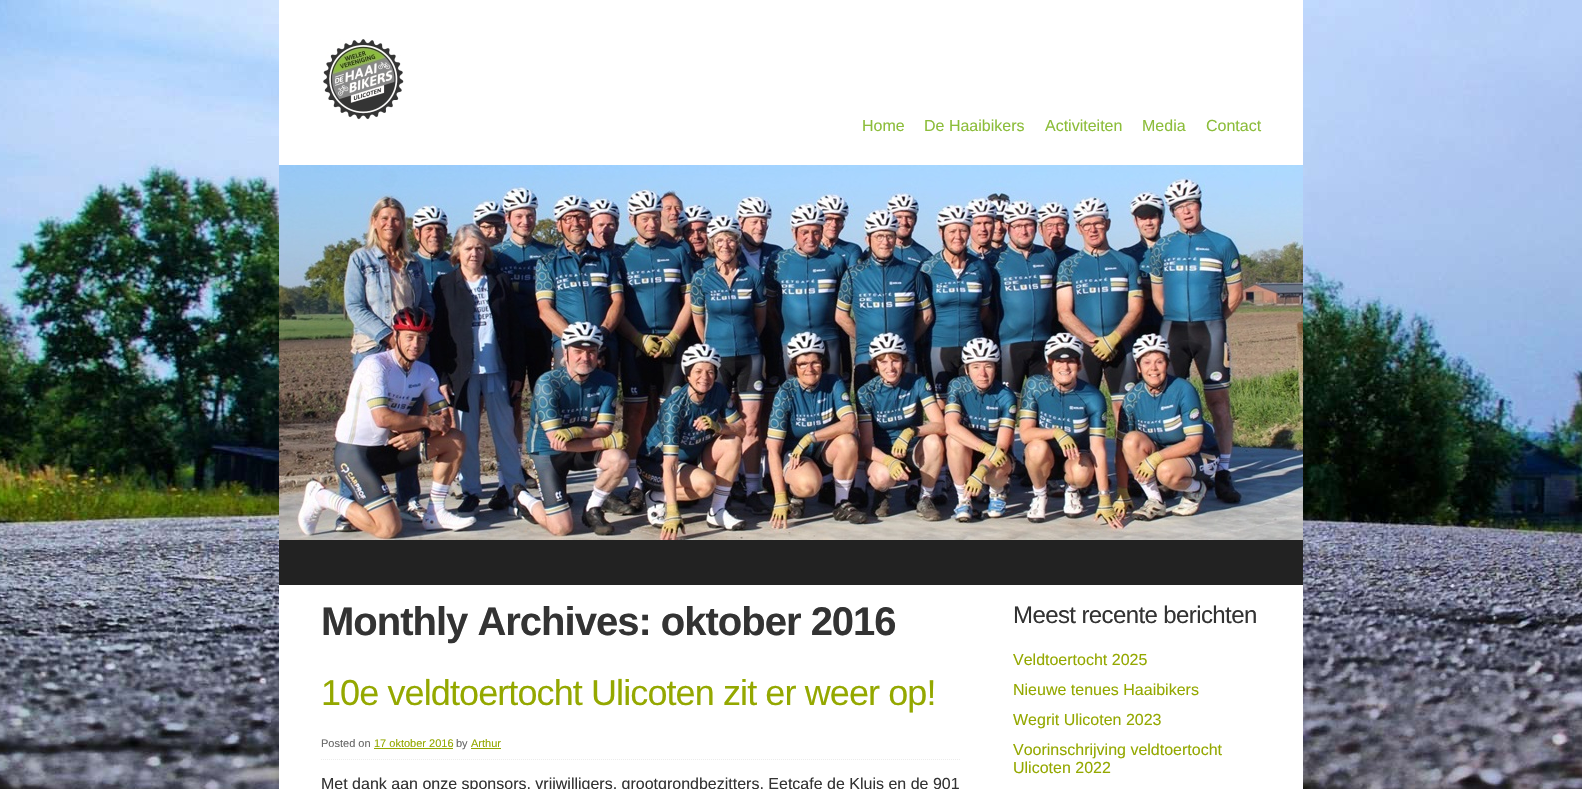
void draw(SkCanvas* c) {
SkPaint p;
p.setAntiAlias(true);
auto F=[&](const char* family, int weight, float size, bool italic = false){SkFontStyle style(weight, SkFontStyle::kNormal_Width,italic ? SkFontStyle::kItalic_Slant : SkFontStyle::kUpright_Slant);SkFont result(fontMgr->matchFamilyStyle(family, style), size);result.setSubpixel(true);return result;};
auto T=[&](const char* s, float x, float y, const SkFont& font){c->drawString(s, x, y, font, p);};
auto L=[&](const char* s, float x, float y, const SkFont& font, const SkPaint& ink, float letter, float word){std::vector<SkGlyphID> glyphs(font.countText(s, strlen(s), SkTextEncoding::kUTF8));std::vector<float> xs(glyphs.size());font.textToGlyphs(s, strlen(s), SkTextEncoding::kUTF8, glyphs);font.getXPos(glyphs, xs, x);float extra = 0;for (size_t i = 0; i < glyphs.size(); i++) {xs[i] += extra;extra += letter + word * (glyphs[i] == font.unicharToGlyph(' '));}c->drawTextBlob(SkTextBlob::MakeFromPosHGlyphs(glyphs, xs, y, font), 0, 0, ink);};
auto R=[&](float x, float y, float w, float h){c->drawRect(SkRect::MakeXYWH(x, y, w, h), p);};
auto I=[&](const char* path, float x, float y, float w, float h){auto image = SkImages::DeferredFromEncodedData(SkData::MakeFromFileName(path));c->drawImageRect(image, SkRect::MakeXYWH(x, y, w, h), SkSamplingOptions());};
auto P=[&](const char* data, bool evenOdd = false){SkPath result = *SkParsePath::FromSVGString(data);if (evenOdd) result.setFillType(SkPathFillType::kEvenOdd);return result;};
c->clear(0xffffffff);
I("1.png",0,0,1582,789);
p.setColor(0xffffffff);
R(279,0,1024,789);
I("2.png",323,39,81,81);
auto f1 = F("Liberation Sans",400,16);
p.setColor(0xff8cbd3a);
T("Home",862,131,f1);
T("De Haaibikers",924,131,f1);
T("Activiteiten",1045,131,f1);
T("Media",1142,131,f1);
T("Contact",1206,131,f1);
p.setColor(0xff222222);
R(279,540,1024,45);
I("3.png",279,165,1024,375);
auto f2 = F("Liberation Sans",700,40);
p.setColor(0xff333333);
L("Monthly Archives: oktober 2016",321,635,f2,p,-1,0);
auto f3 = F("Liberation Sans",400,36);
p.setColor(0xff94a800);
L("10e veldtoertocht Ulicoten zit er weer op!",321,705,f3,p,-.9,0);
p.setStroke(true);
p.setStrokeWidth(1);
p.setColor(0xffececec);
p.setPathEffect(SkDashPathEffect::Make({{1,1}}, 0));
c->drawPath(P("M321 759.5h640"),p);
p.setPathEffect(nullptr);
auto f4 = F("Liberation Sans",400,11);
p.setStroke(false);
p.setColor(0xff666666);
T("Posted on",321,747,f4);
p.setColor(0xff94a800);
T("17 oktober 2016",374,747,f4);
R(374,748,79,1);
p.setColor(0xff666666);
T("by",456,747,f4);
p.setColor(0xff94a800);
T("Arthur",471,747,f4);
R(471,748,30,1);
p.setColor(0xff333333);
T("Met dank aan onze sponsors, vrijwilligers, grootgrondbezitters, Eetcafe de Kluis en de 901",321,789,f1);
auto f5 = F("Liberation Sans",400,24);
L("Meest recente berichten",1013,623,f5,p,-.6,0);
p.setColor(0xff94a800);
T("Veldtoertocht 2025",1013,665,f1);
T("Nieuwe tenues Haaibikers",1013,695,f1);
T("Wegrit Ulicoten 2023",1013,725,f1);
T("Voorinschrijving veldtoertocht",1013,755,f1);
T("Ulicoten 2022",1013,773,f1);
}
